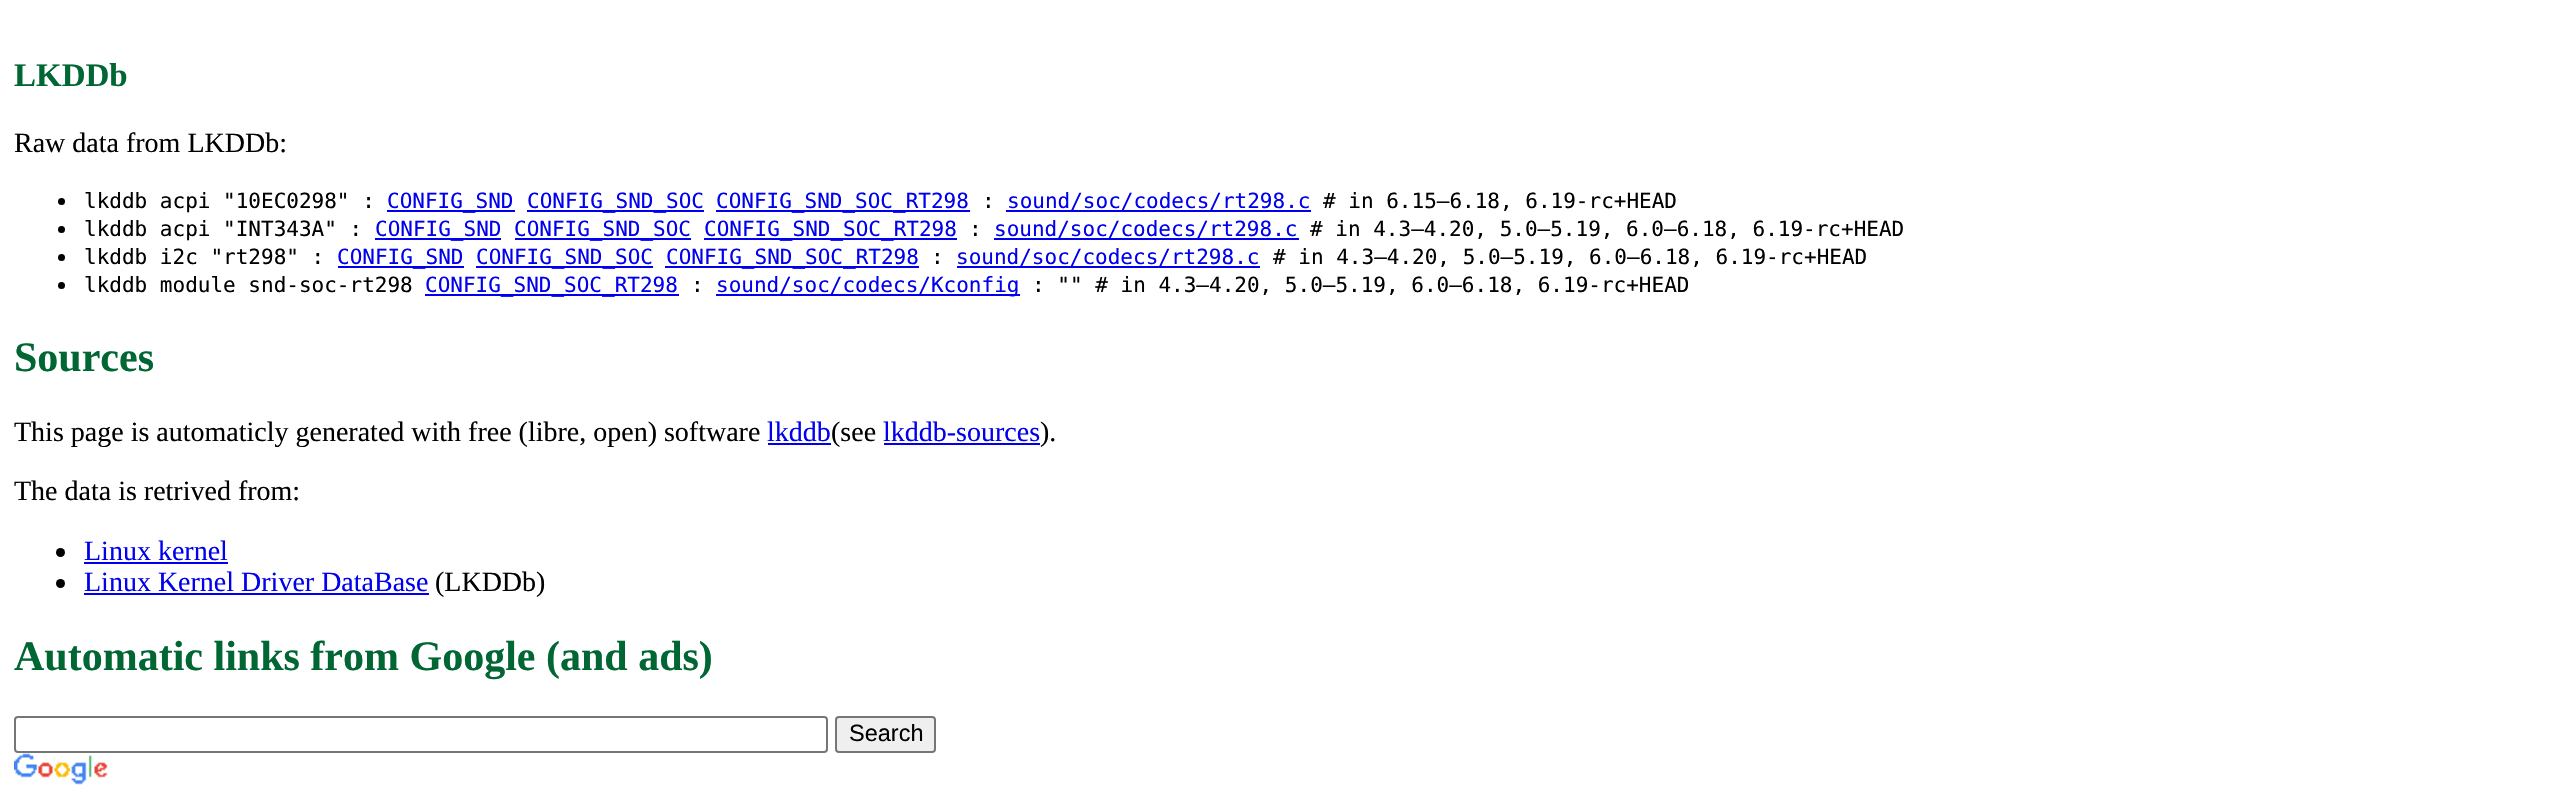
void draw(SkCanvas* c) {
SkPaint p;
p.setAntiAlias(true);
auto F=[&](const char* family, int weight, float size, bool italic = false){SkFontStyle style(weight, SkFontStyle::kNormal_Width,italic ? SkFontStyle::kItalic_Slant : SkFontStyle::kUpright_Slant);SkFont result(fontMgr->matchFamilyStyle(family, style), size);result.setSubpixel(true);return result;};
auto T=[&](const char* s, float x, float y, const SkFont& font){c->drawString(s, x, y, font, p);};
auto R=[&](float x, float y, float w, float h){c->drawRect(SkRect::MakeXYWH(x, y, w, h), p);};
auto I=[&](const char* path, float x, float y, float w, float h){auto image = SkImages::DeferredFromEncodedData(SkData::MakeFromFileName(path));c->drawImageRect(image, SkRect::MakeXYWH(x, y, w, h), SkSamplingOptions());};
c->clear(0xffffffff);
auto f1 = F("Liberation Serif",700,33);
p.setColor(0xff006633);
T("LKDDb",14,86,f1);
auto f2 = F("Liberation Serif",400,28);
p.setColor(0xff000000);
T("Raw data from LKDDb:",14,152,f2);
c->drawCircle(61.5,201.5,3.5,p);
auto f3 = F("DejaVu Sans Mono",400,21);
T("lkddb acpi \"10EC0298\" :",84,208,f3);
p.setColor(0xff0000ee);
R(387,210,128,2);
T("CONFIG_SND",387,208,f3);
R(527,210,177,2);
T("CONFIG_SND_SOC",527,208,f3);
R(716,210,254,2);
T("CONFIG_SND_SOC_RT298",716,208,f3);
p.setColor(0xff000000);
T(":",982,208,f3);
p.setColor(0xff0000ee);
T("sound/soc/codecs/rt298.c",1007,208,f3);
R(1006,210,305,2);
p.setColor(0xff000000);
T("# in 6.15–6.18, 6.19-rc+HEAD",1323,208,f3);
c->drawCircle(61.5,229.5,3.5,p);
T("lkddb acpi \"INT343A\" :",84,236,f3);
p.setColor(0xff0000ee);
R(375,238,126,2);
T("CONFIG_SND",375,236,f3);
R(515,238,176,2);
T("CONFIG_SND_SOC",514,236,f3);
R(704,238,253,2);
T("CONFIG_SND_SOC_RT298",704,236,f3);
p.setColor(0xff000000);
T(":",969,236,f3);
p.setColor(0xff0000ee);
T("sound/soc/codecs/rt298.c",994,236,f3);
R(994,238,305,2);
p.setColor(0xff000000);
T("# in 4.3–4.20, 5.0–5.19, 6.0–6.18, 6.19-rc+HEAD",1310,236,f3);
c->drawCircle(61.5,257.5,3.5,p);
T("lkddb i2c \"rt298\" :",84,264,f3);
p.setColor(0xff0000ee);
R(338,266,126,2);
T("CONFIG_SND",337,264,f3);
R(476,266,177,2);
T("CONFIG_SND_SOC",476,264,f3);
R(665,266,254,2);
T("CONFIG_SND_SOC_RT298",666,264,f3);
p.setColor(0xff000000);
T(":",931,264,f3);
p.setColor(0xff0000ee);
T("sound/soc/codecs/rt298.c",956,264,f3);
R(957,266,303,2);
p.setColor(0xff000000);
T("# in 4.3–4.20, 5.0–5.19, 6.0–6.18, 6.19-rc+HEAD",1273,264,f3);
c->drawCircle(61.5,285.5,3.5,p);
T("lkddb module snd-soc-rt298",84,292,f3);
p.setColor(0xff0000ee);
R(425,294,254,2);
T("CONFIG_SND_SOC_RT298",425,292,f3);
p.setColor(0xff000000);
T(":",691,292,f3);
p.setColor(0xff0000ee);
R(716,294,304,2);
T("sound/soc/codecs/Kconfig",716,292,f3);
p.setColor(0xff000000);
T(": \"\" # in 4.3–4.20, 5.0–5.19, 6.0–6.18, 6.19-rc+HEAD",1032,292,f3);
auto f4 = F("Liberation Serif",700,42);
p.setColor(0xff006633);
T("Sources",14,371,f4);
p.setColor(0xff000000);
T("This page is automaticly generated with free (libre, open) software",14,441,f2);
p.setColor(0xff0000ee);
T("lkddb",767,441,f2);
R(768,443,63,2);
p.setColor(0xff000000);
T("(see",831,441,f2);
p.setColor(0xff0000ee);
T("lkddb-sources",883,441,f2);
R(884,443,156,2);
p.setColor(0xff000000);
T(").",1040,441,f2);
T("The data is retrived from:",14,500,f2);
c->drawCircle(60.5,552.5,4.5,p);
p.setColor(0xff0000ee);
T("Linux kernel",84,560,f2);
R(84,562,144,2);
p.setColor(0xff000000);
c->drawCircle(60.5,583.5,4.5,p);
p.setColor(0xff0000ee);
T("Linux Kernel Driver DataBase",84,591,f2);
R(84,593,345,2);
p.setColor(0xff000000);
T("(LKDDb)",435,591,f2);
p.setColor(0xff006633);
T("Automatic links from Google (and ads)",14,670,f4);
p.setStroke(true);
p.setStrokeWidth(2);
p.setColor(0xff767676);
c->drawRoundRect(SkRect::MakeXYWH(15,717,812,35),3,3,p);
p.setStroke(false);
p.setColor(0xffefefef);
c->drawRoundRect(SkRect::MakeXYWH(836,717,99,35),3,3,p);
p.setStroke(true);
p.setColor(0xff767676);
c->drawRoundRect(SkRect::MakeXYWH(836,717,99,35),3,3,p);
auto f5 = F("Liberation Sans",400,23.5);
p.setStroke(false);
p.setColor(0xff000000);
T("Search",849,741,f5);
I("1.png",14,753,94,32);
}
